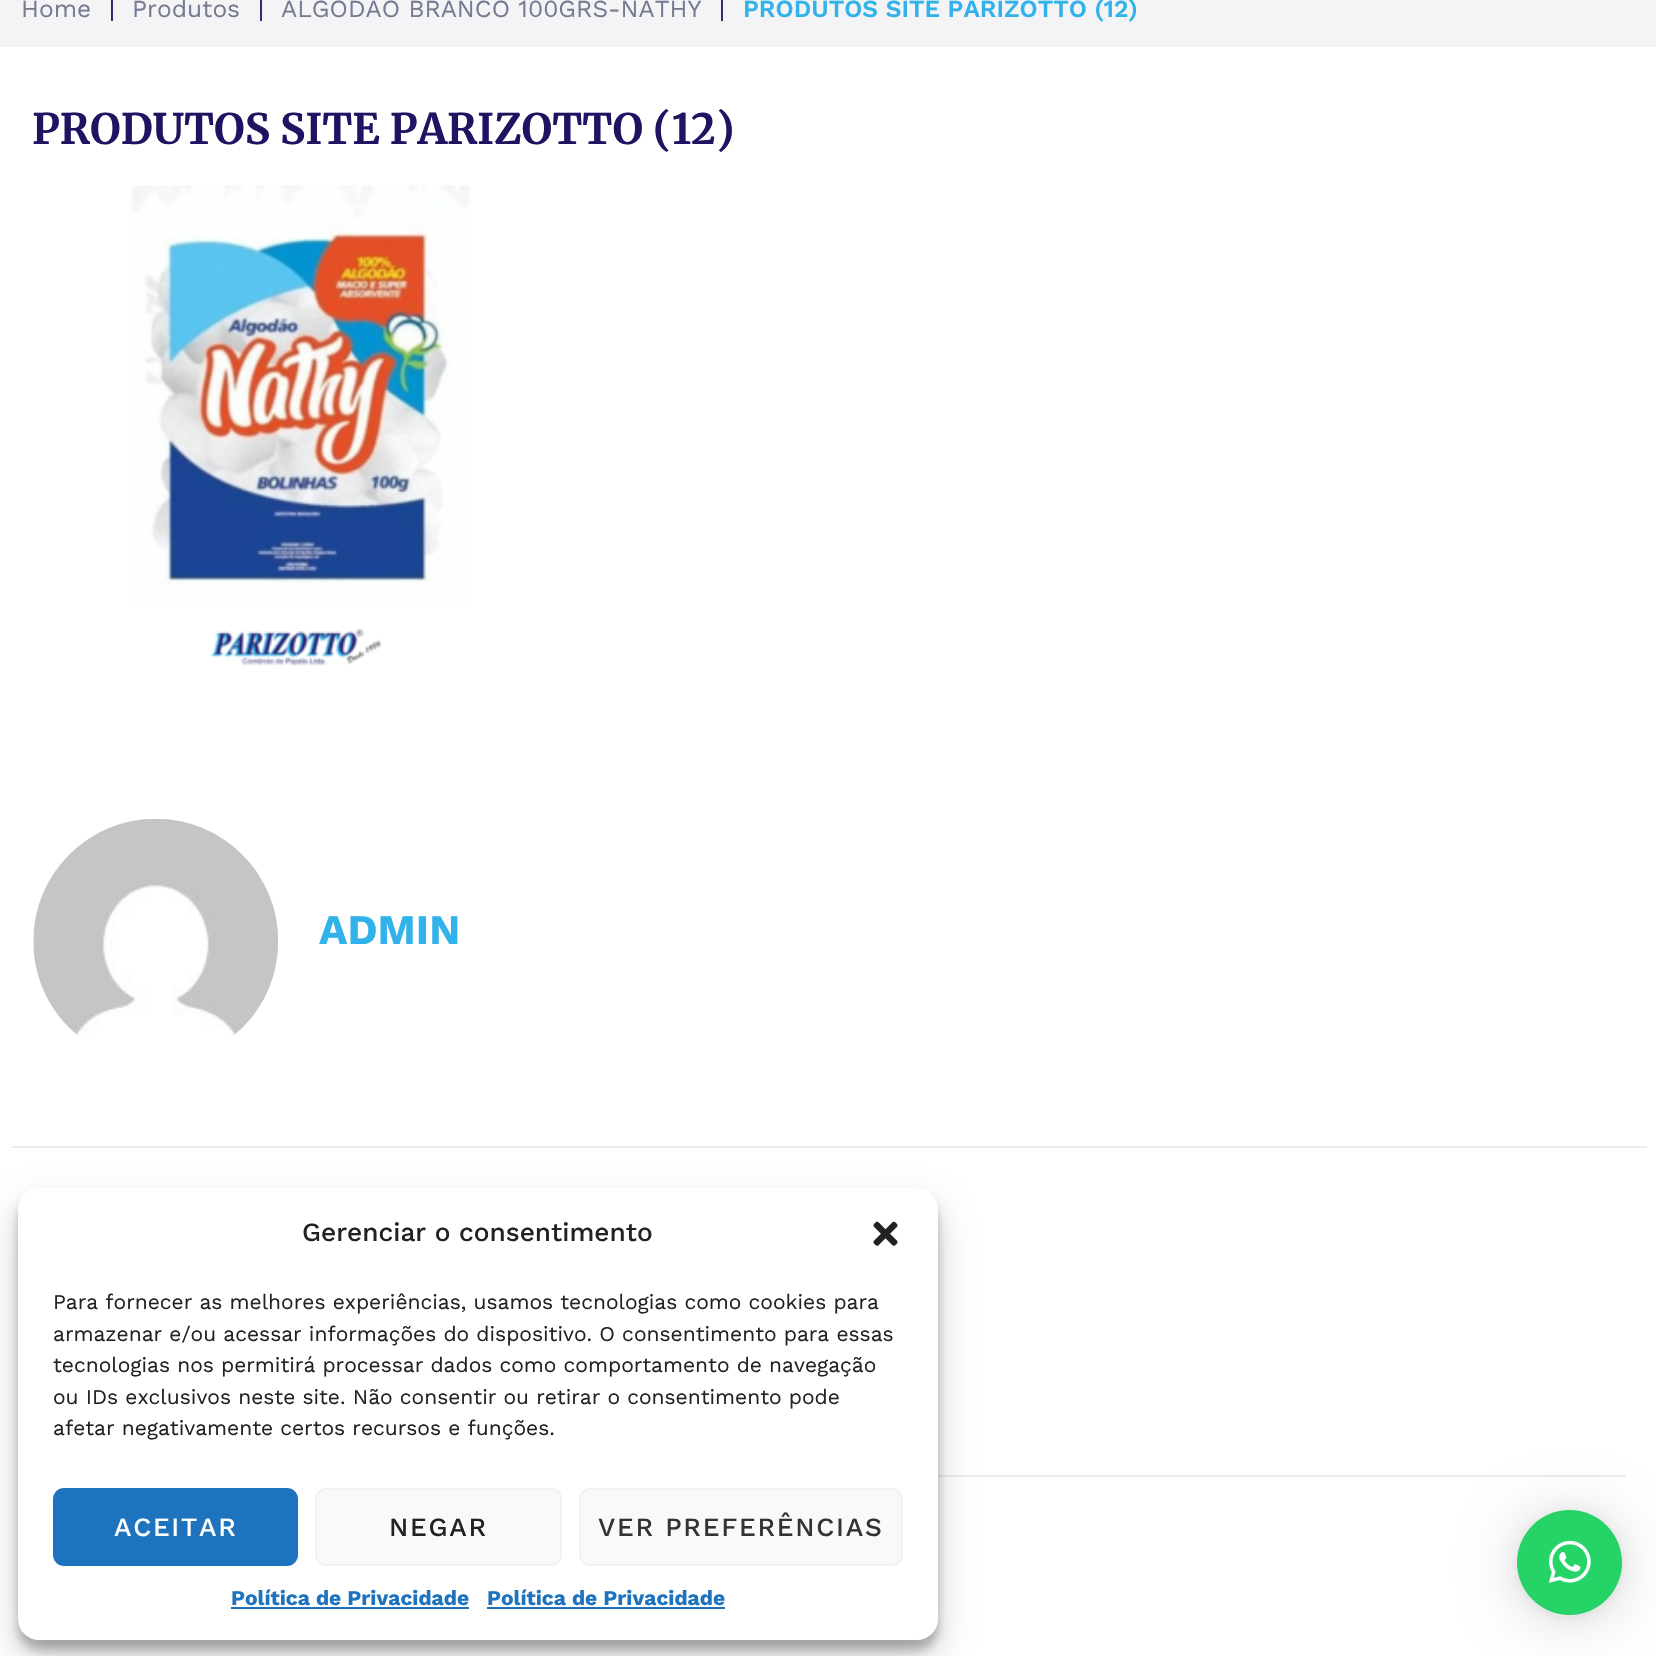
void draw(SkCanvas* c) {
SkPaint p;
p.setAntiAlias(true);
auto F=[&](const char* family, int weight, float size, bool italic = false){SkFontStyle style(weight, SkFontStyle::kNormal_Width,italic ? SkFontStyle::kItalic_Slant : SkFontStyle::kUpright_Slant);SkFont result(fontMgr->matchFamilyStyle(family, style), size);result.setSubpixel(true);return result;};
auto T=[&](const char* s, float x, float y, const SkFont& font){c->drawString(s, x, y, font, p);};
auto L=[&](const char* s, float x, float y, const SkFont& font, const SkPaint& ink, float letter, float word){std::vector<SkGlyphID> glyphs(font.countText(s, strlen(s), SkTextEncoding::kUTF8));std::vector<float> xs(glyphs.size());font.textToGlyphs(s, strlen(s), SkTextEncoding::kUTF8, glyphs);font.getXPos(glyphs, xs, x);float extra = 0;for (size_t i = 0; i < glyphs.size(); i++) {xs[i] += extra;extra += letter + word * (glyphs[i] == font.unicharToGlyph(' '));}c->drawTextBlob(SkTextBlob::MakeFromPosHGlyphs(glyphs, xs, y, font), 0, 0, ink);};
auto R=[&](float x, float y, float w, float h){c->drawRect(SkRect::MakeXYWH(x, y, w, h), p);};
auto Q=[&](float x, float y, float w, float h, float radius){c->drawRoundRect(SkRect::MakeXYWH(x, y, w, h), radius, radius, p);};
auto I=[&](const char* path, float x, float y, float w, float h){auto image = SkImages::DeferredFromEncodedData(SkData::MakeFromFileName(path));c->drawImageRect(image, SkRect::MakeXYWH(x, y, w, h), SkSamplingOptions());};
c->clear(0xffffffff);
p.setColor(0xfff4f4f7);
R(0,0,1656,47);
auto f1 = F("Work Sans",400,24.5);
p.setColor(0xff757b91);
T("Home",21,17,f1);
p.setColor(0xff201362);
T("|",109,17,f1);
p.setColor(0xff757b91);
T("Produtos",132,17,f1);
p.setColor(0xff201362);
T("|",258,17,f1);
p.setColor(0xff757b91);
T("ALGODÃO BRANCO 100GRS-NATHY",281,17,f1);
p.setColor(0xff201362);
T("|",719,17,f1);
auto f2 = F("Work Sans",600,24.5);
p.setColor(0xff31b2ea);
T("PRODUTOS SITE PARIZOTTO (12)",743,17,f2);
auto f3 = F("Merriweather",700,42);
p.setColor(0xff201362);
T("PRODUTOS SITE PARIZOTTO (12)",32,144,f3);
I("1.png",130,185,341,481);
p.setColor(0xffebeced);
R(12,1146,1635,2);
I("2.png",33,819,246,217);
auto f4 = F("Work Sans",700,42);
p.setColor(0xff31b2ea);
T("ADMIN",319,944,f4);
p.setColor(0xffebeced);
R(938,1475,688,2);
p.setColor(0x3b000000);
p.setMaskFilter(SkMaskFilter::MakeBlur(kNormal_SkBlurStyle, 5));
c->drawRoundRect(SkRect::MakeXYWH(18,1199,920,451),21,21,p);
p.setMaskFilter(nullptr);
p.setColor(0x30000000);
p.setMaskFilter(SkMaskFilter::MakeBlur(kNormal_SkBlurStyle, 17.5));
c->drawRoundRect(SkRect::MakeXYWH(18,1206,920,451),21,21,p);
p.setMaskFilter(nullptr);
p.setColor(0xffffffff);
Q(18,1188,920,452,21);
auto f5 = F("Work Sans",500,26.25);
p.setColor(0xff222222);
T("Gerenciar o consentimento",302,1241,f5);
I("3.png",873,1221,25,25);
auto f6 = F("Work Sans",400,21);
T("Para fornecer as melhores experiências, usamos tecnologias como cookies para",53,1309,f6);
T("armazenar e/ou acessar informações do dispositivo. O consentimento para essas",53,1341,f6);
T("tecnologias nos permitirá processar dados como comportamento de navegação",53,1372,f6);
T("ou IDs exclusivos neste site. Não consentir ou retirar o consentimento pode",53,1404,f6);
T("afetar negativamente certos recursos e funções.",53,1435,f6);
p.setColor(0xff1e73be);
c->drawRoundRect(SkRect::MakeXYWH(54,1489,243,76),10,10,p);
p.setStroke(true);
p.setStrokeWidth(2);
c->drawRoundRect(SkRect::MakeXYWH(54,1489,243,76),10,10,p);
p.setStroke(false);
p.setColor(0xffffffff);
L("ACEITAR",114,1536,f5,p,1.75,0);
p.setColor(0xfff9f9f9);
c->drawRoundRect(SkRect::MakeXYWH(316,1489,245,76),10,10,p);
p.setStroke(true);
p.setColor(0xfff2f2f2);
c->drawRoundRect(SkRect::MakeXYWH(316,1489,245,76),10,10,p);
p.setStroke(false);
p.setColor(0xff222222);
L("NEGAR",389,1536,f5,p,1.75,0);
p.setColor(0xfff9f9f9);
c->drawRoundRect(SkRect::MakeXYWH(580,1489,322,76),10,10,p);
p.setStroke(true);
p.setColor(0xfff2f2f2);
c->drawRoundRect(SkRect::MakeXYWH(580,1489,322,76),10,10,p);
p.setStroke(false);
p.setColor(0xff333333);
L("VER PREFERÊNCIAS",598,1536,f5,p,1.75,0);
auto f7 = F("Work Sans",700,21);
p.setColor(0xff1e73be);
T("Política de Privacidade",231,1605,f7);
R(231,1607,238,2);
T("Política de Privacidade",487,1605,f7);
R(487,1607,238,2);
p.setColor(0x29000000);
p.setMaskFilter(SkMaskFilter::MakeBlur(kNormal_SkBlurStyle, 28));
c->drawRoundRect(SkRect::MakeXYWH(1517,1514,105,105),52.5,52.5,p);
p.setMaskFilter(nullptr);
p.setColor(0x0f000000);
p.setMaskFilter(SkMaskFilter::MakeBlur(kNormal_SkBlurStyle, 5));
c->drawRoundRect(SkRect::MakeXYWH(1517,1512,105,105),52.5,52.5,p);
p.setMaskFilter(nullptr);
p.setColor(0xff25d366);
c->drawCircle(1569.5,1562.5,52.5,p);
I("4.png",1548,1540,43,43);
}
